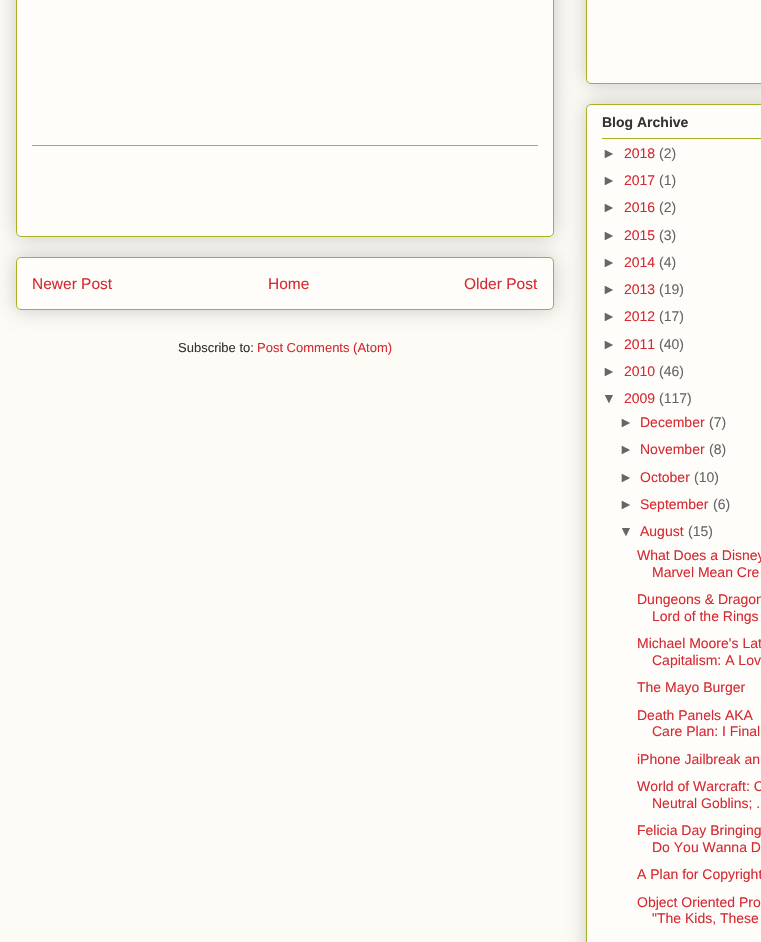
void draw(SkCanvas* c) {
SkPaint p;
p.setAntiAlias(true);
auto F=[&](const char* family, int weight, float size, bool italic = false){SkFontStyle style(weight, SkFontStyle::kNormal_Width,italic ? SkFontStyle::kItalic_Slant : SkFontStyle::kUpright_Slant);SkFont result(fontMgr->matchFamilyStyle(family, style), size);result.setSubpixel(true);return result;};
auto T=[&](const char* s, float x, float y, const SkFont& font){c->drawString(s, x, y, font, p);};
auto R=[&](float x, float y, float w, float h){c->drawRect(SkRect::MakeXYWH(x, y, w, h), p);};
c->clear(0xfffcfbf5);
p.setColor(0x33000000);
p.setMaskFilter(SkMaskFilter::MakeBlur(kNormal_SkBlurStyle, 10));
c->drawRoundRect(SkRect::MakeXYWH(16,257,538,53),5,5,p);
p.setMaskFilter(nullptr);
p.setColor(0xfffefdfa);
c->drawRoundRect(SkRect::MakeXYWH(16.5,257.5,537,52),4.5,4.5,p);
p.setStroke(true);
p.setStrokeWidth(1);
p.setColor(0xffaab123);
c->drawRoundRect(SkRect::MakeXYWH(16.5,257.5,537,52),4.5,4.5,p);
p.setStroke(false);
p.setColor(0x33000000);
p.setMaskFilter(SkMaskFilter::MakeBlur(kNormal_SkBlurStyle, 10));
c->drawRoundRect(SkRect::MakeXYWH(16,-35,538,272),5,5,p);
p.setMaskFilter(nullptr);
p.setColor(0xfffefdfa);
c->drawRoundRect(SkRect::MakeXYWH(16.5,-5.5,537,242),4.5,4.5,p);
p.setStroke(true);
p.setColor(0xffaab123);
c->drawRoundRect(SkRect::MakeXYWH(16.5,-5.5,537,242),4.5,4.5,p);
p.setStroke(false);
R(32,145,506,1);
auto f1 = F("Liberation Sans",400,15.5);
p.setColor(0xffd52a33);
T("Newer Post",32,289,f1);
T("Home",268,289,f1);
T("Older Post",464,289,f1);
auto f2 = F("Liberation Sans",400,13);
p.setColor(0xff333333);
T("Subscribe to:",178,352,f2);
p.setColor(0xffd52a33);
T("Post Comments (Atom)",257,352,f2);
p.setColor(0x33000000);
p.setMaskFilter(SkMaskFilter::MakeBlur(kNormal_SkBlurStyle, 10));
c->drawRoundRect(SkRect::MakeXYWH(586,-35,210,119),5,5,p);
p.setMaskFilter(nullptr);
p.setColor(0xfffefdfa);
c->drawRoundRect(SkRect::MakeXYWH(586.5,-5.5,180,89),4.5,4.5,p);
p.setStroke(true);
p.setColor(0xffaab123);
c->drawRoundRect(SkRect::MakeXYWH(586.5,-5.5,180,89),4.5,4.5,p);
p.setStroke(false);
p.setColor(0x33000000);
p.setMaskFilter(SkMaskFilter::MakeBlur(kNormal_SkBlurStyle, 10));
c->drawRoundRect(SkRect::MakeXYWH(586,104,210,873),5,5,p);
p.setMaskFilter(nullptr);
p.setColor(0xfffefdfa);
c->drawRoundRect(SkRect::MakeXYWH(586.5,104.5,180,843),4.5,4.5,p);
p.setStroke(true);
p.setColor(0xffaab123);
c->drawRoundRect(SkRect::MakeXYWH(586.5,104.5,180,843),4.5,4.5,p);
auto f3 = F("Liberation Sans",700,14);
p.setStroke(false);
p.setColor(0xff333333);
T("Blog Archive",602,127,f3);
p.setColor(0xffaab123);
R(602,138,159,1);
auto f4 = F("Liberation Sans",400,14);
p.setColor(0xff666666);
T("►",602,158,f4);
p.setColor(0xffd52a33);
T("2018",624,158,f4);
p.setColor(0xff666666);
T("(2)",659,158,f4);
T("►",602,185,f4);
p.setColor(0xffd52a33);
T("2017",624,185,f4);
p.setColor(0xff666666);
T("(1)",659,185,f4);
T("►",602,212,f4);
p.setColor(0xffd52a33);
T("2016",624,212,f4);
p.setColor(0xff666666);
T("(2)",659,212,f4);
T("►",602,240,f4);
p.setColor(0xffd52a33);
T("2015",624,240,f4);
p.setColor(0xff666666);
T("(3)",659,240,f4);
T("►",602,267,f4);
p.setColor(0xffd52a33);
T("2014",624,267,f4);
p.setColor(0xff666666);
T("(4)",659,267,f4);
T("►",602,294,f4);
p.setColor(0xffd52a33);
T("2013",624,294,f4);
p.setColor(0xff666666);
T("(19)",659,294,f4);
T("►",602,321,f4);
p.setColor(0xffd52a33);
T("2012",624,321,f4);
p.setColor(0xff666666);
T("(17)",659,321,f4);
T("►",602,349,f4);
p.setColor(0xffd52a33);
T("2011",624,349,f4);
p.setColor(0xff666666);
T("(40)",659,349,f4);
T("►",602,376,f4);
p.setColor(0xffd52a33);
T("2010",624,376,f4);
p.setColor(0xff666666);
T("(46)",659,376,f4);
T("▼",602,403,f4);
p.setColor(0xffd52a33);
T("2009",624,403,f4);
p.setColor(0xff666666);
T("(117)",659,403,f4);
T("►",619,427,f4);
p.setColor(0xffd52a33);
T("December",640,427,f4);
p.setColor(0xff666666);
T("(7)",709,427,f4);
T("►",619,454,f4);
p.setColor(0xffd52a33);
T("November",640,454,f4);
p.setColor(0xff666666);
T("(8)",709,454,f4);
T("►",619,482,f4);
p.setColor(0xffd52a33);
T("October",640,482,f4);
p.setColor(0xff666666);
T("(10)",694,482,f4);
T("►",619,509,f4);
p.setColor(0xffd52a33);
T("September",640,509,f4);
p.setColor(0xff666666);
T("(6)",713,509,f4);
T("▼",619,536,f4);
p.setColor(0xffd52a33);
T("August",640,536,f4);
p.setColor(0xff666666);
T("(15)",688,536,f4);
p.setColor(0xffd52a33);
T("What Does a Disney",637,560,f4);
T("Marvel Mean Cre",652,577,f4);
T("Dungeons & Dragon",637,604,f4);
T("Lord of the Rings",652,621,f4);
T("Michael Moore's Lat",637,648,f4);
T("Capitalism: A Lov",652,665,f4);
T("The Mayo Burger",637,692,f4);
T("Death Panels AKA",637,720,f4);
T("Care Plan: I Final",652,736,f4);
T("iPhone Jailbreak an",637,764,f4);
T("World of Warcraft: C",637,791,f4);
T("Neutral Goblins; .",652,808,f4);
T("Felicia Day Bringing",637,835,f4);
T("Do You Wanna D",652,852,f4);
T("A Plan for Copyright",637,879,f4);
T("Object Oriented Pro",637,907,f4);
T("\"The Kids, These",652,923,f4);
}
